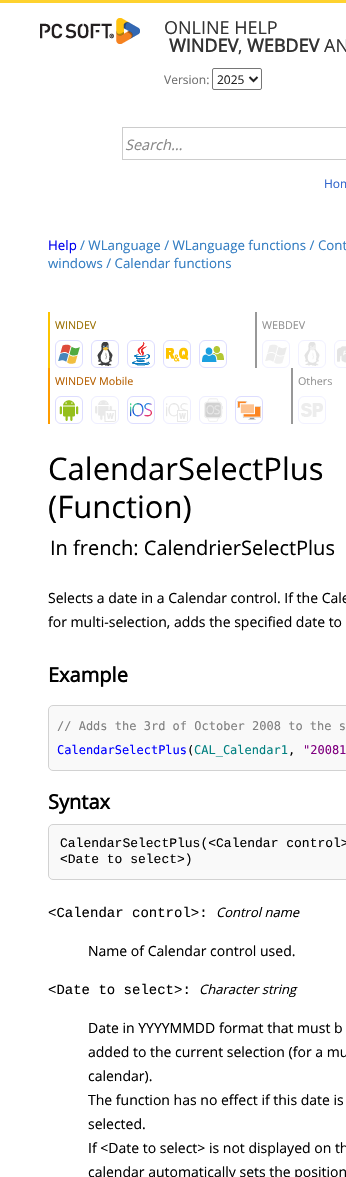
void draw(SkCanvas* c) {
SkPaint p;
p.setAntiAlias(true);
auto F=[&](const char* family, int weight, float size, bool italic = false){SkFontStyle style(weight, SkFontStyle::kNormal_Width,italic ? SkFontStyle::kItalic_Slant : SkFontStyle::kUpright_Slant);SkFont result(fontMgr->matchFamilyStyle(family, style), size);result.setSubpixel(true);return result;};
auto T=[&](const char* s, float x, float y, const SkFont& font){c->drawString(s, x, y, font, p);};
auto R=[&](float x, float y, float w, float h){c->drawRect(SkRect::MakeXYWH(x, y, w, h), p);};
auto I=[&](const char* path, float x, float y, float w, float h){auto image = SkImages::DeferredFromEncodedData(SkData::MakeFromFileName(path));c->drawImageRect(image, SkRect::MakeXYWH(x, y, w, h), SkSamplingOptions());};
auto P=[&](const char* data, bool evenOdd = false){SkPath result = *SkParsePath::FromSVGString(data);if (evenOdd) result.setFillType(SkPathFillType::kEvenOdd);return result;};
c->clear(0xfffed22f);
p.setColor(0xffffffff);
R(0,3,346,1174);
I("1.png",40,18,100,26);
auto f1 = F("Open Sans",400,18);
p.setColor(0xff333333);
T("ONLINE HELP",164,34,f1);
auto f2 = F("Open Sans",700,18);
T("WINDEV",169,52,f2);
T(",",238,52,f1);
T("WEBDEV",247,52,f2);
T("AN",324,52,f1);
auto f3 = F("Open Sans",400,12);
p.setColor(0xff6f6f6f);
T("Version:",164,84,f3);
p.setStroke(true);
p.setStrokeWidth(1);
p.setColor(0xff767676);
c->drawRoundRect(SkRect::MakeXYWH(212.5,68.5,49,21),1.5,1.5,p);
p.setStrokeWidth(2);
p.setColor(0xff222222);
c->drawPath(P("M249.5 77l4 4l4-4"),p);
p.setStroke(false);
T("2025",217,84,f3);
p.setStroke(true);
p.setStrokeWidth(1);
p.setColor(0xffcccccc);
c->drawRect(SkRect::MakeXYWH(122.5,127.5,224,32),p);
auto f4 = F("Open Sans",400,14.5,true);
p.setStroke(false);
p.setColor(0xff888888);
T("Search...",125,150,f4);
p.setColor(0xff3366cc);
T("Hom",324,188,f3);
auto f5 = F("Open Sans",400,13.3);
p.setColor(0xff0000ee);
T("Help",48,250,f5);
p.setColor(0xff337dc2);
T("/ WLanguage / WLanguage functions / Cont",80,250,f5);
T("windows / Calendar functions",48,268,f5);
p.setColor(0xfffdc400);
R(48,312,2,56);
auto f6 = F("Open Sans",400,10.75);
p.setColor(0xff9a6f00);
T("WINDEV",55,329,f6);
p.setStroke(true);
p.setColor(0xffddddff);
c->drawRoundRect(SkRect::MakeXYWH(55.5,340.5,27,27),5.5,5.5,p);
c->drawRoundRect(SkRect::MakeXYWH(91.5,340.5,27,27),5.5,5.5,p);
c->drawRoundRect(SkRect::MakeXYWH(127.5,340.5,27,27),5.5,5.5,p);
c->drawRoundRect(SkRect::MakeXYWH(163.5,340.5,27,27),5.5,5.5,p);
c->drawRoundRect(SkRect::MakeXYWH(199.5,340.5,27,27),5.5,5.5,p);
I("2.png",58,344,22,20);
I("3.png",97,342,16,24);
I("4.png",132,342,18,24);
I("5.png",166,347,23,15);
I("6.png",202,346,22,16);
p.setStroke(false);
p.setColor(0xff989898);
R(255,312,2,56);
p.setColor(0xff929292);
T("WEBDEV",262,329,f6);
p.setStroke(true);
p.setColor(0xfff1f1ff);
c->drawRoundRect(SkRect::MakeXYWH(262.5,340.5,27,27),5.5,5.5,p);
c->drawRoundRect(SkRect::MakeXYWH(298.5,340.5,27,27),5.5,5.5,p);
c->drawRoundRect(SkRect::MakeXYWH(334.5,340.5,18,27),5.5,5.5,p);
I("7.png",265,344,22,20);
I("8.png",304,342,16,24);
I("9.png",337,346,9,17);
p.setStroke(false);
p.setColor(0xffff9c00);
R(48,368,2,56);
p.setColor(0xffb65f00);
T("WINDEV Mobile",55,385,f6);
p.setStroke(true);
p.setColor(0xffddddff);
c->drawRoundRect(SkRect::MakeXYWH(55.5,396.5,27,27),5.5,5.5,p);
p.setColor(0xffeeeeff);
c->drawRoundRect(SkRect::MakeXYWH(91.5,396.5,27,27),5.5,5.5,p);
p.setColor(0xffddddff);
c->drawRoundRect(SkRect::MakeXYWH(127.5,396.5,27,27),5.5,5.5,p);
p.setColor(0xffeeeeff);
c->drawRoundRect(SkRect::MakeXYWH(163.5,396.5,27,27),5.5,5.5,p);
c->drawRoundRect(SkRect::MakeXYWH(199.5,396.5,27,27),5.5,5.5,p);
p.setColor(0xffddddff);
c->drawRoundRect(SkRect::MakeXYWH(235.5,396.5,27,27),5.5,5.5,p);
I("10.png",59,400,20,21);
I("11.png",95,400,21,22);
I("12.png",130,403,22,14);
I("13.png",166,403,22,19);
I("14.png",204,398,19,24);
I("15.png",237,401,24,19);
p.setStroke(false);
p.setColor(0xff989898);
R(291,368,2,56);
p.setColor(0xff929292);
T("Others",298,385,f6);
p.setStroke(true);
p.setColor(0xfff1f1ff);
c->drawRoundRect(SkRect::MakeXYWH(298.5,396.5,27,27),5.5,5.5,p);
I("16.png",301,403,22,14);
auto f7 = F("Open Sans",400,31);
p.setStroke(false);
p.setColor(0xff000000);
T("CalendarSelectPlus",48,480,f7);
T("(Function)",48,518,f7);
auto f8 = F("Open Sans",400,20);
T("In french: CalendrierSelectPlus",50,555,f8);
auto f9 = F("Open Sans",400,14);
T("Selects a date in a Calendar control. If the Cale",48,603,f9);
T("for multi-selection, adds the specified date to",48,627,f9);
auto f10 = F("Open Sans",700,20);
T("Example",48,682,f10);
p.setColor(0xfff9f9f9);
c->drawRoundRect(SkRect::MakeXYWH(48.5,705.5,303,65),4.5,4.5,p);
p.setStroke(true);
p.setColor(0xffd2d2d2);
c->drawRoundRect(SkRect::MakeXYWH(48.5,705.5,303,65),4.5,4.5,p);
auto f11 = F("DejaVu Sans Mono",400,12);
p.setStroke(false);
p.setColor(0xff808080);
T("// Adds the 3rd of October 2008 to the s",57,730,f11);
p.setColor(0xff0000ff);
T("CalendarSelectPlus",57,754,f11);
p.setColor(0xff000000);
T("(",187,754,f11);
p.setColor(0xff008080);
T("CAL_Calendar1",194,754,f11);
p.setColor(0xff000000);
T(",",288,754,f11);
p.setColor(0xff800080);
T("\"20081",303,754,f11);
p.setColor(0xff000000);
T("Syntax",48,809,f10);
p.setColor(0xfff9f9f9);
c->drawRoundRect(SkRect::MakeXYWH(48.5,824.5,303,55),4.5,4.5,p);
p.setStroke(true);
p.setColor(0xffd2d2d2);
c->drawRoundRect(SkRect::MakeXYWH(48.5,824.5,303,55),4.5,4.5,p);
auto f12 = F("Liberation Mono",400,13);
p.setStroke(false);
p.setColor(0xff000000);
T("CalendarSelectPlus(<Calendar control>",60,847,f12);
T("<Date to select>)",60,863,f12);
auto f13 = F("Liberation Mono",400,14);
T("<Calendar control>:",48,917,f13);
auto f14 = F("Open Sans",400,13,true);
T("Control name",216,917,f14);
T("Name of Calendar control used.",88,956,f9);
T("<Date to select>:",48,994,f13);
T("Character string",199,994,f14);
T("Date in YYYYMMDD format that must b",88,1033,f9);
T("added to the current selection (for a mu",88,1057,f9);
T("calendar).",88,1081,f9);
T("The function has no effect if this date is",88,1105,f9);
T("selected.",88,1129,f9);
T("If <Date to select> is not displayed on th",88,1153,f9);
T("calendar automatically sets the position",88,1177,f9);
}
